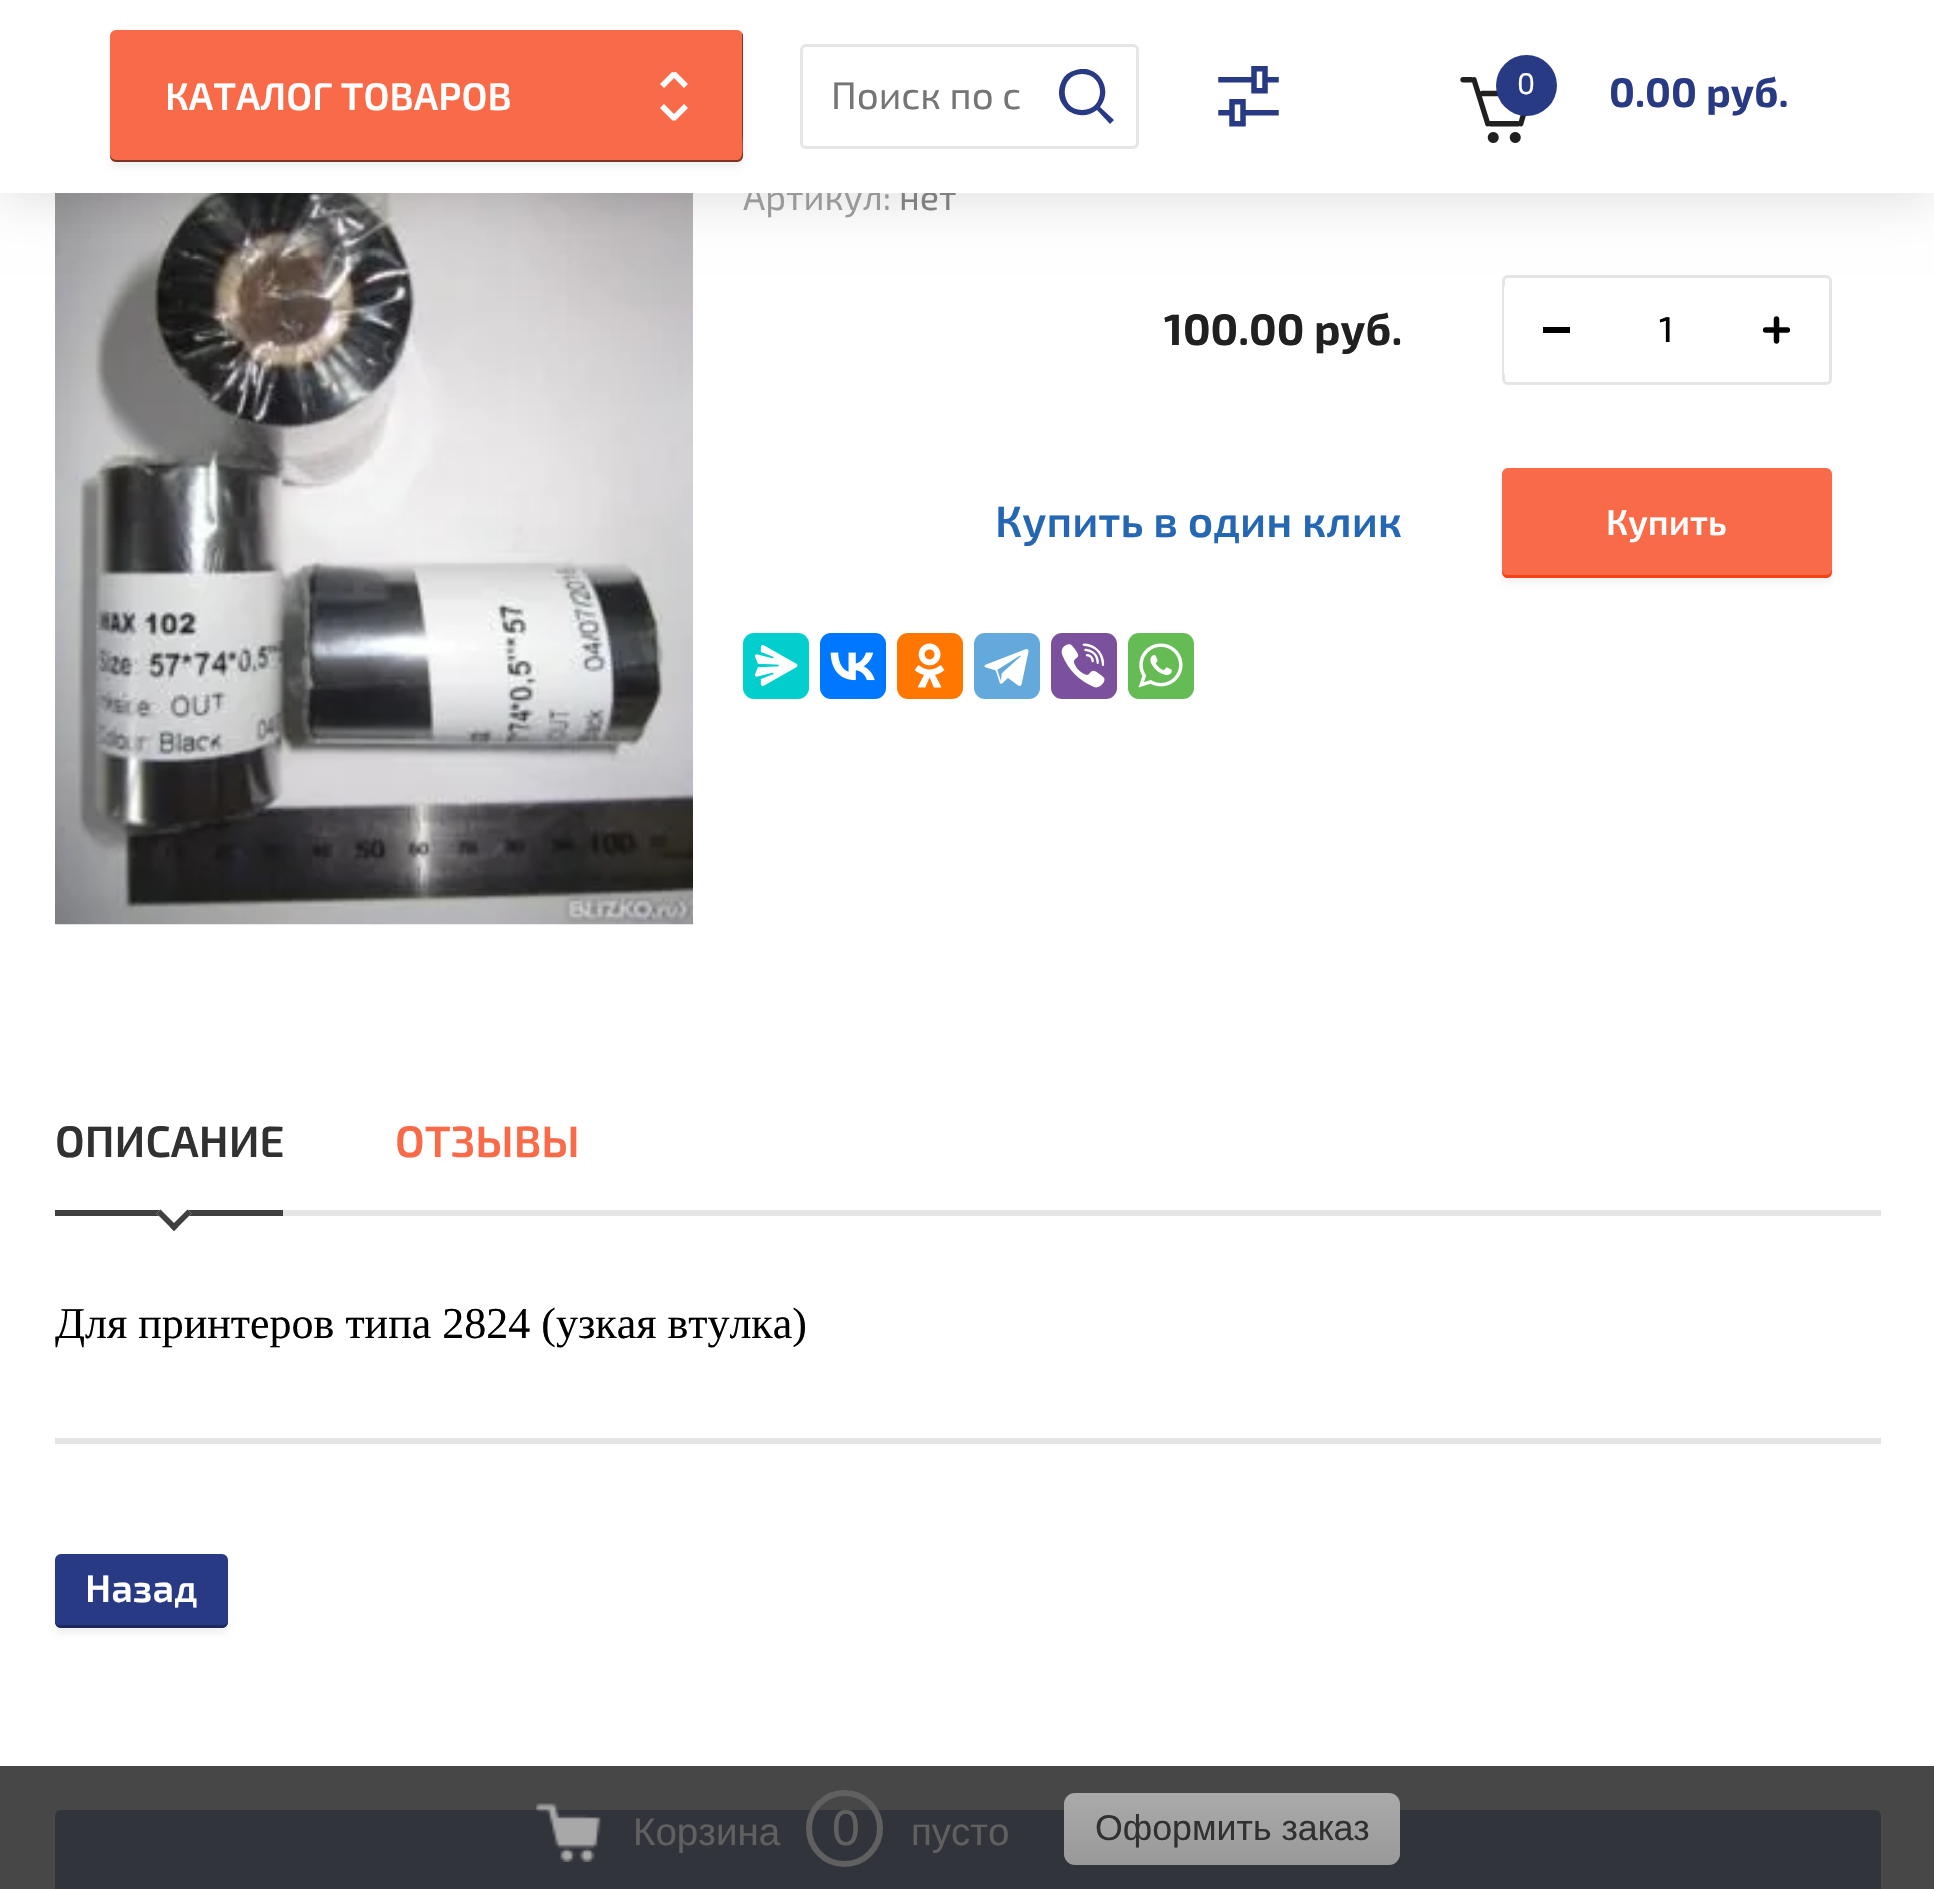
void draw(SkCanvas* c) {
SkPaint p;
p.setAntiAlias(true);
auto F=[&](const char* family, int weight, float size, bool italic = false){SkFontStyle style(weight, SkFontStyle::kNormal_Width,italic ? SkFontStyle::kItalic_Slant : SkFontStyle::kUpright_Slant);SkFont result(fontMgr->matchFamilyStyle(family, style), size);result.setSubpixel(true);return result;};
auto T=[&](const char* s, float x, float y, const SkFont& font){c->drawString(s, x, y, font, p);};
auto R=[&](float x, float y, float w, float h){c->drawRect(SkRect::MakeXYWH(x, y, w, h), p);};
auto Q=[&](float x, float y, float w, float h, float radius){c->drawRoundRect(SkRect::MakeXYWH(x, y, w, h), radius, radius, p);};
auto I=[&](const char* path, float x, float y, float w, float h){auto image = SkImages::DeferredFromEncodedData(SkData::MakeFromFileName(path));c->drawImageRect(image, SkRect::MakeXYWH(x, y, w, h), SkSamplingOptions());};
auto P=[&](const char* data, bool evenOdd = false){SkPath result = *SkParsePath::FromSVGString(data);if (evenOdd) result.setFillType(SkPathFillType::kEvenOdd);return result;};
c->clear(0xffffffff);
p.setColor(0xff474747);
R(0,1766,1934,123);
I("3.png",55,193,638,732);
p.setStroke(true);
p.setStrokeWidth(3);
p.setColor(0xffe5e5e5);
c->drawRoundRect(SkRect::MakeXYWH(1503.5,276.5,327,107),4.5,4.5,p);
p.setStroke(false);
p.setColor(0x26000000);
p.setMaskFilter(SkMaskFilter::MakeBlur(kNormal_SkBlurStyle, 27.5));
c->drawRect(SkRect::MakeXYWH(0,0,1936,193),p);
p.setMaskFilter(nullptr);
auto f1 = F("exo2",400,35.75);
p.setColor(0xff999999);
T("Артикул:",743,210,f1);
p.setColor(0xff808080);
T("нет",899,210,f1);
p.setColor(0xffffffff);
R(0,0,1934,193);
p.setColor(0x0d000000);
p.setMaskFilter(SkMaskFilter::MakeBlur(kNormal_SkBlurStyle, 3));
c->drawRoundRect(SkRect::MakeXYWH(110,36,633,132),6,6,p);
p.setMaskFilter(nullptr);
p.setColor(0xfff96a48);
Q(110,30,633,132,6);
c->save();
c->clipRect(SkRect::MakeXYWH(660,72,28,49));
p.setColor(0xffffffff);
c->drawPath(P("M674 78l-10 10l-4-4l13-13l1 2l1-2l13 13l-4 4zm0 36l10-10l4 4l-13 13l-1-1l-1 1l-13-13l4-4z"),p);
c->restore();
p.setColor(0x80000000);
c->drawPath(P("M110 154v2c0 3 3 6 6 6h621c3 0 6-3 6-6v-120c0-1 0-2-1-3v101c0 10 3 26-5 26h-621c-3 0-6-3-6-6z"),p);
auto f2 = F("Exo 2",600,38.5);
p.setColor(0xffffffff);
T("КАТАЛОГ ТОВАРОВ",165,110,f2);
p.setStroke(true);
p.setColor(0xffe6e6e6);
c->drawRoundRect(SkRect::MakeXYWH(801.5,45.5,336,102),4.5,4.5,p);
auto f3 = F("exo2",400,38.5);
p.setStroke(false);
p.setColor(0xff757575);
T("Поиск по с",831,109,f3);
c->save();
c->clipRect(SkRect::MakeXYWH(1059,69,55,55));
p.setColor(0xff293a84);
c->drawPath(P("M1114 120l-4 4l-13-14c-11 9-27 6-34-5c-5-6-5-15-2-22c2-6 6-10 12-12c23-10 42 17 27 36zm-32-46c-23 0-23 36 0 36c24 0 24-36 0-36z"),p);
c->restore();
I("1.png",1218,66,61,61);
I("2.png",1460,77,66,66);
c->drawCircle(1526.5,85.5,30.5,p);
auto f4 = F("exo2",400,30);
p.setColor(0xffffffff);
T("0",1517,94,f4);
auto f5 = F("exo2",700,41.25);
p.setColor(0xff293a84);
T("0.00 руб.",1609,107,f5);
auto f6 = F("exo2",700,44);
p.setColor(0xff202020);
T("100.00 руб.",1164,345,f6);
p.setColor(0xffffffff);
Q(1504,278,105,104,11);
p.setColor(0xff000000);
R(1543,327,27,6);
auto f7 = F("Exo 2",500,35.75);
T("1",1659,342,f7);
I("4.png",1763,316,27,28);
auto f8 = F("Exo 2",600,44);
p.setColor(0xff2567b3);
T("Купить в один клик",995,537,f8);
p.setColor(0x0d000000);
p.setMaskFilter(SkMaskFilter::MakeBlur(kNormal_SkBlurStyle, 3));
c->drawRoundRect(SkRect::MakeXYWH(1502,473,330,110),6,6,p);
p.setMaskFilter(nullptr);
p.setColor(0xfff96a48);
Q(1502,468,330,110,6);
p.setColor(0xfff74217);
c->drawPath(P("M1502 569c0 4 0 8 5 9h320c5-1 5-5 5-9c0 3-3 6-6 6h-319c-3 0-5-3-5-6z"),p);
auto f9 = F("Exo 2",600,35.75);
p.setColor(0xffffffff);
T("Купить",1606,535,f9);
p.setColor(0xff03cece);
Q(743,633,66,66,11);
I("5.png",754,645,44,41);
p.setColor(0xff0077ff);
Q(820,633,66,66,11);
I("6.png",830,652,45,29);
p.setColor(0xffff7700);
Q(897,633,66,66,11);
I("7.png",914,643,31,45);
p.setColor(0xff64a9dc);
Q(974,633,66,66,11);
I("8.png",984,649,45,37);
p.setColor(0xff7b519d);
Q(1051,633,66,66,11);
I("9.png",1061,643,44,45);
p.setColor(0xff65bc54);
Q(1128,633,66,66,11);
I("10.png",1138,643,45,45);
p.setColor(0xffe5e5e5);
R(283,1210,1598,6);
p.setColor(0xff404040);
R(55,1210,228,6);
p.setColor(0xff313131);
T("ОПИСАНИЕ",55,1157,f8);
p.setColor(0xffffffff);
c->drawPath(P("M174 1231l-17.5-17.5l17.5-17.5l17.5 17.5z"),p);
p.setColor(0xff404040);
c->drawPath(P("M174 1231l-17.5-17.5l4-4l17.5 17.5z"),p);
c->drawPath(P("M174 1231l-4-4l17.5-17.5l4 4z"),p);
p.setColor(0xfff96a48);
T("ОТЗЫВЫ",395,1157,f8);
p.setColor(0xffe5e5e5);
R(55,1438,1826,6);
auto f10 = F("Liberation Serif",400,44);
p.setColor(0xff000000);
T("Для принтеров типа 2824 (узкая втулка)",55,1338,f10);
p.setColor(0x0d000000);
p.setMaskFilter(SkMaskFilter::MakeBlur(kNormal_SkBlurStyle, 3));
c->drawRoundRect(SkRect::MakeXYWH(55,1559,173,75),6,6,p);
p.setMaskFilter(nullptr);
p.setColor(0xff293a84);
Q(55,1554,173,74,6);
p.setColor(0xff1d295d);
c->drawPath(P("M55 1620v2c0 3 3 6 6 6h161c3 0 6-3 6-6v-2c0 3-2 5-5 5h-163c-3 0-5-2-5-5z"),p);
p.setColor(0xffffffff);
T("Назад",85,1602,f2);
p.setColor(0xff32343b);
Q(55,1810,1826,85,6);
I("11.png",536,1803,65,59);
auto f11 = F("Liberation Sans",400,38.5);
p.setColor(0xff606060);
T("Корзина",633,1845,f11);
p.setStroke(true);
p.setStrokeWidth(6);
c->drawCircle(844.5,1828.5,35.5,p);
auto f12 = F("Liberation Sans",400,50);
p.setStroke(false);
T("0",832,1845,f12);
T("пусто",911,1845,f11);
{
const SkColor colors[] = {0xffaaaaaa,0xff999999};
const float stops[] = {0,1};
const SkPoint ends[] = {{1232,1793}, {1232,1865}};
p.setShader(SkGradientShader::MakeLinear(ends, colors, stops, 2, SkTileMode::kClamp));
p.setAlpha(255);
}
Q(1064,1793,336,72,11);
auto f13 = F("Liberation Sans",400,35.75);
p.setShader(nullptr);
p.setColor(0xff313131);
T("Оформить заказ",1095,1840,f13);
}
